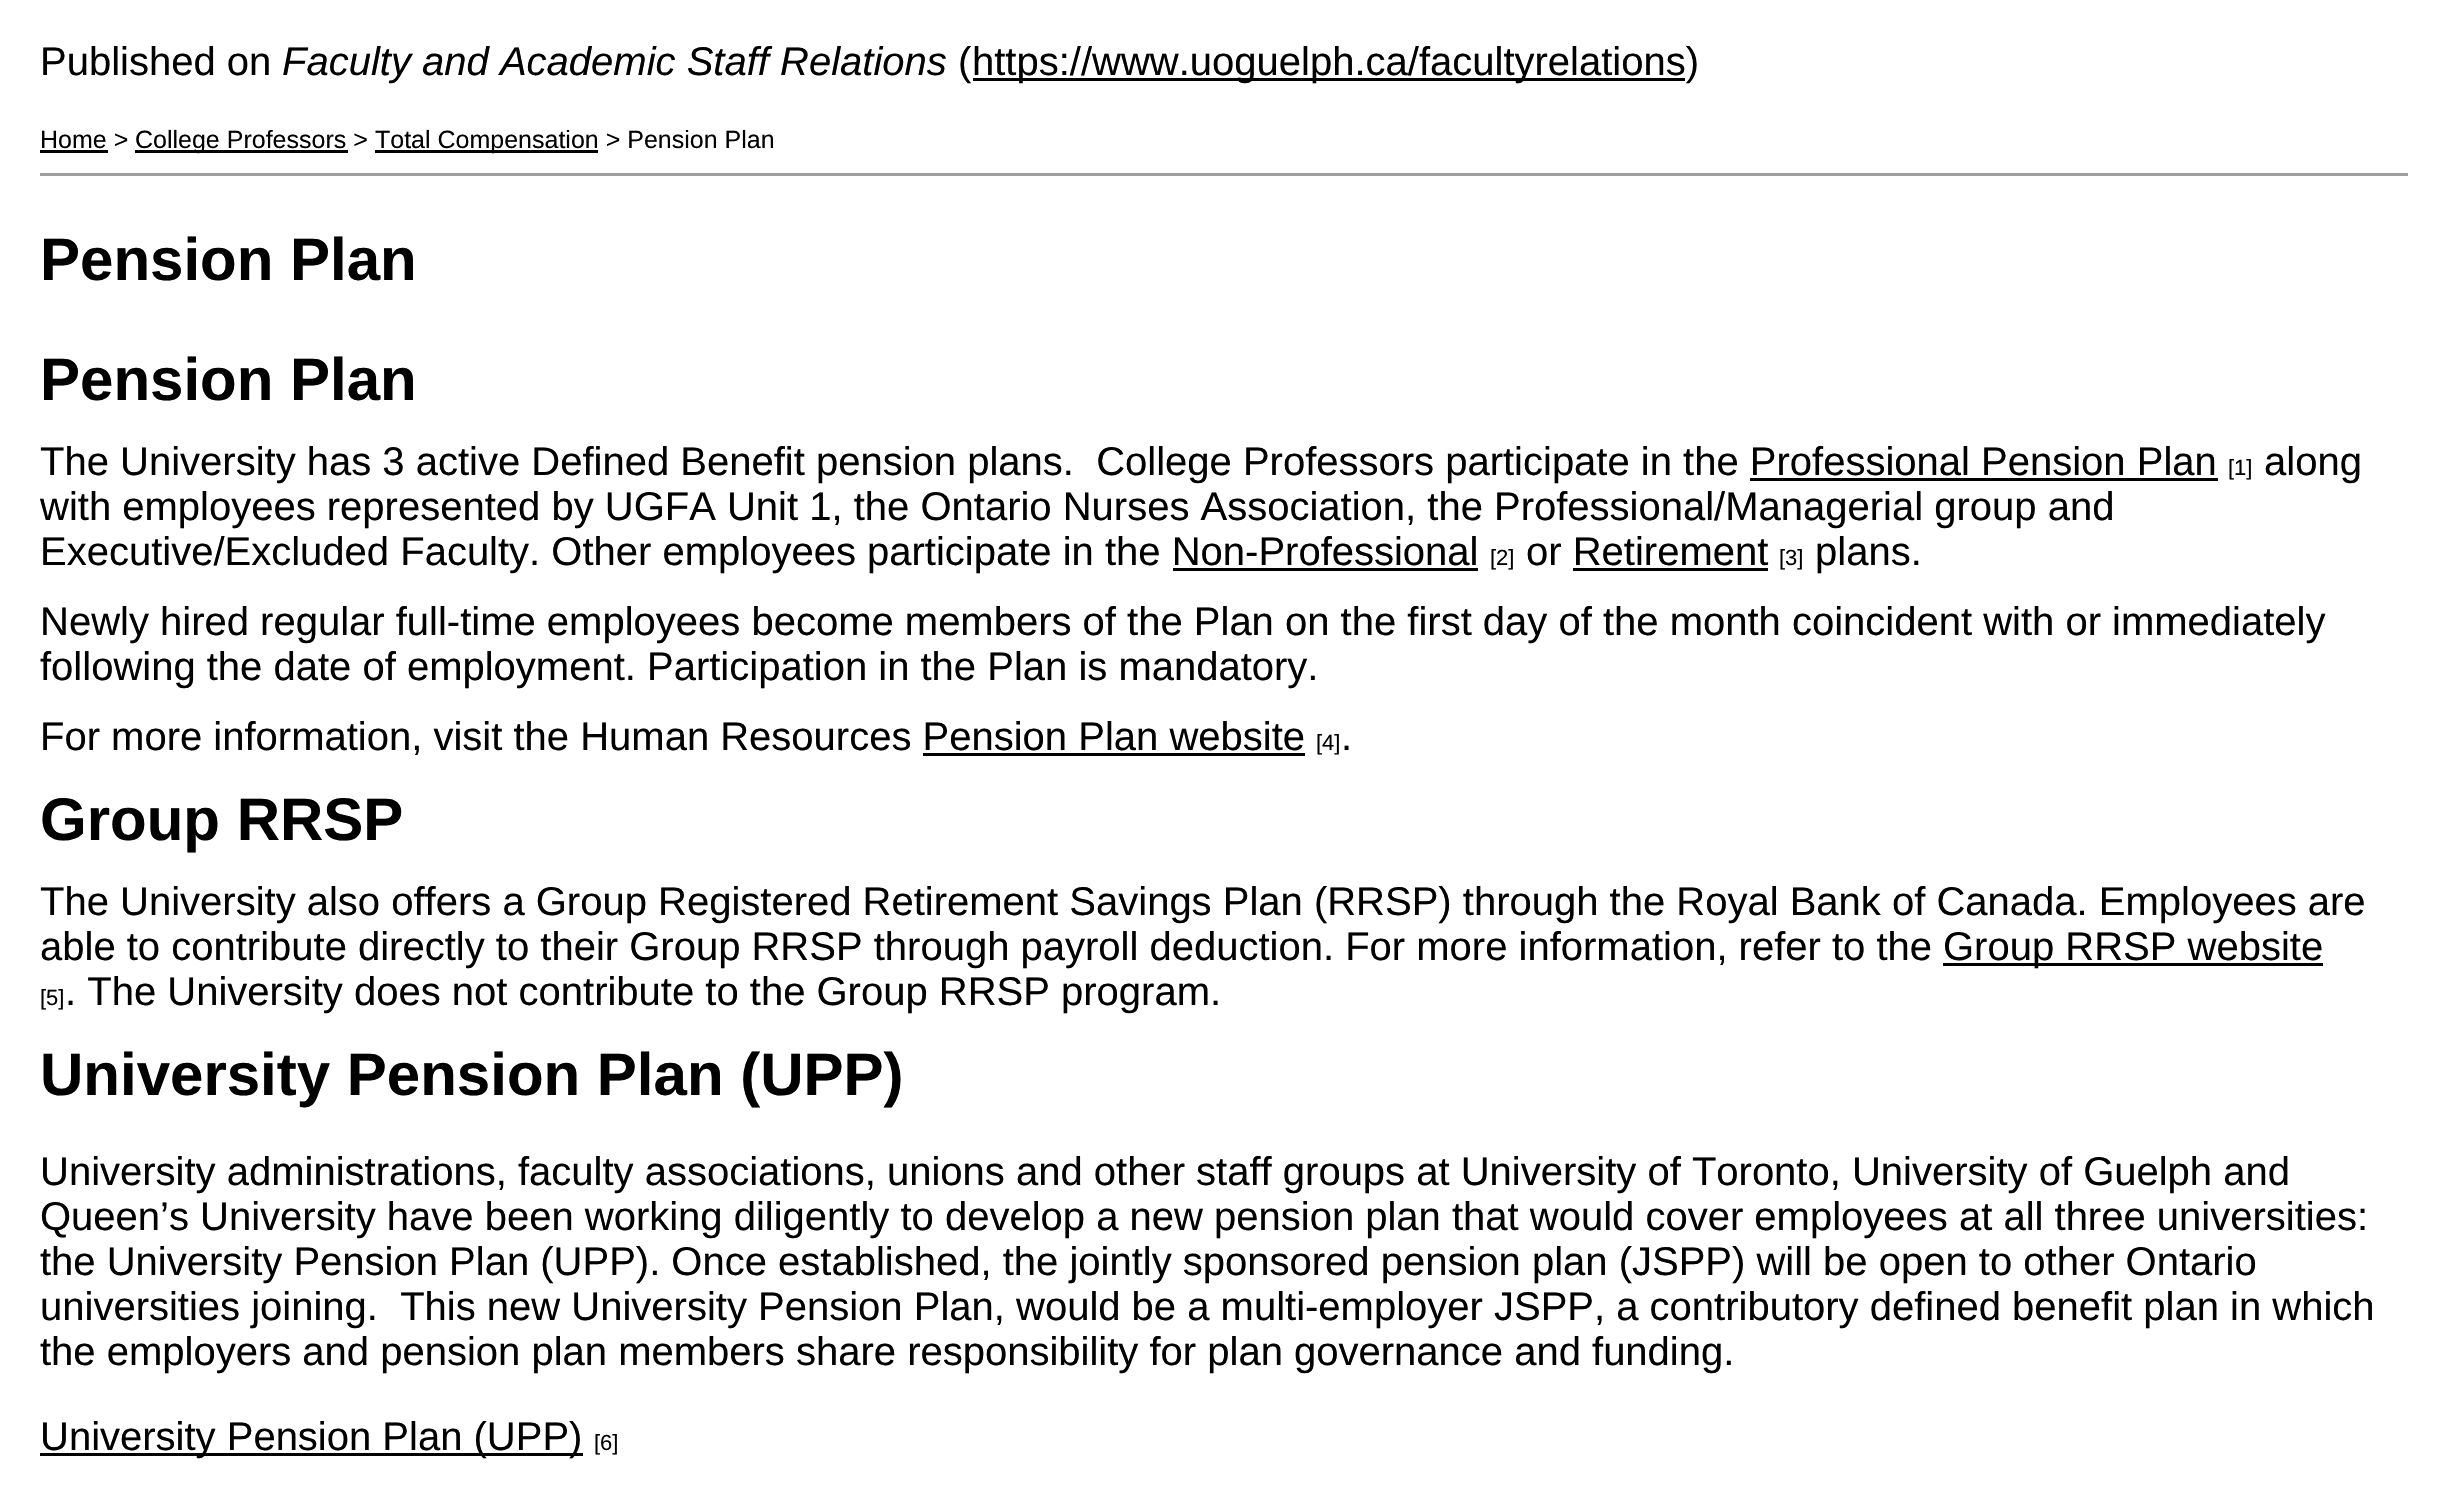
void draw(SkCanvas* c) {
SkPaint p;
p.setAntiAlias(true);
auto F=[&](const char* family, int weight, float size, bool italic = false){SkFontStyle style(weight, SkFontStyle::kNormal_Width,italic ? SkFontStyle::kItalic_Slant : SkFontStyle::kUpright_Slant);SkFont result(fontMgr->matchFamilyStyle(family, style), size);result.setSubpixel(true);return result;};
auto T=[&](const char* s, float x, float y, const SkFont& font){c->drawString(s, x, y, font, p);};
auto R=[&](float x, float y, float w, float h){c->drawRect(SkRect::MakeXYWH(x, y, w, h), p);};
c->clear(0xffffffff);
auto f1 = F("Liberation Sans",400,40);
p.setColor(0xff000000);
T("Published on",40,75,f1);
auto f2 = F("Liberation Sans",400,40,true);
T("Faculty and Academic Staff Relations",282,75,f2);
T("(",958,75,f1);
R(973,78,712,3);
T("https://www.uoguelph.ca/facultyrelations)",972,75,f1);
auto f3 = F("Liberation Sans",400,25);
T("Home >",40,148,f3);
R(40,150,68,3);
R(135,150,213,3);
T("College Professors >",135,148,f3);
R(375,150,223,3);
T("Total Compensation > Pension Plan",375,148,f3);
p.setColor(0xff9e9e9e);
R(40,173,2368,3);
auto f4 = F("Liberation Sans",700,60);
p.setColor(0xff000000);
T("Pension Plan",40,280,f4);
T("Pension Plan",40,400,f4);
T("The University has 3 active Defined Benefit pension plans.  College Professors participate in the Professional Pension Plan",40,475,f1);
auto f5 = F("Liberation Sans",400,22);
T("[1]",2228,475,f5);
T("along",2264,475,f1);
R(1750,478,468,3);
T("with employees represented by UGFA Unit 1, the Ontario Nurses Association, the Professional/Managerial group and",40,520,f1);
T("Executive/Excluded Faculty. Other employees participate in the Non-Professional",40,565,f1);
T("[2]",1490,565,f5);
T("or Retirement",1526,565,f1);
T("[3]",1779,565,f5);
T("plans.",1815,565,f1);
R(1173,568,305,3);
R(1573,568,195,3);
T("Newly hired regular full-time employees become members of the Plan on the first day of the month coincident with or immediately",40,635,f1);
T("following the date of employment. Participation in the Plan is mandatory.",40,680,f1);
T("For more information, visit the Human Resources Pension Plan website",40,750,f1);
T("[4]",1316,750,f5);
T(".",1341,750,f1);
R(923,753,382,3);
T("Group RRSP",40,840,f4);
T("The University also offers a Group Registered Retirement Savings Plan (RRSP) through the Royal Bank of Canada. Employees are",40,915,f1);
T("able to contribute directly to their Group RRSP through payroll deduction. For more information, refer to the",40,960,f1);
R(1943,963,380,3);
T("Group RRSP website",1943,960,f1);
T("[5]",40,1005,f5);
T(". The University does not contribute to the Group RRSP program.",65,1005,f1);
T("University Pension Plan (UPP)",40,1095,f4);
T("University administrations, faculty associations, unions and other staff groups at University of Toronto, University of Guelph and",40,1185,f1);
T("Queen’s University have been working diligently to develop a new pension plan that would cover employees at all three universities:",40,1230,f1);
T("the University Pension Plan (UPP). Once established, the jointly sponsored pension plan (JSPP) will be open to other Ontario",40,1275,f1);
T("universities joining.  This new University Pension Plan, would be a multi-employer JSPP, a contributory defined benefit plan in which",40,1320,f1);
T("the employers and pension plan members share responsibility for plan governance and funding.",40,1365,f1);
R(40,1453,543,3);
T("University Pension Plan (UPP)",40,1450,f1);
T("[6]",594,1450,f5);
}
